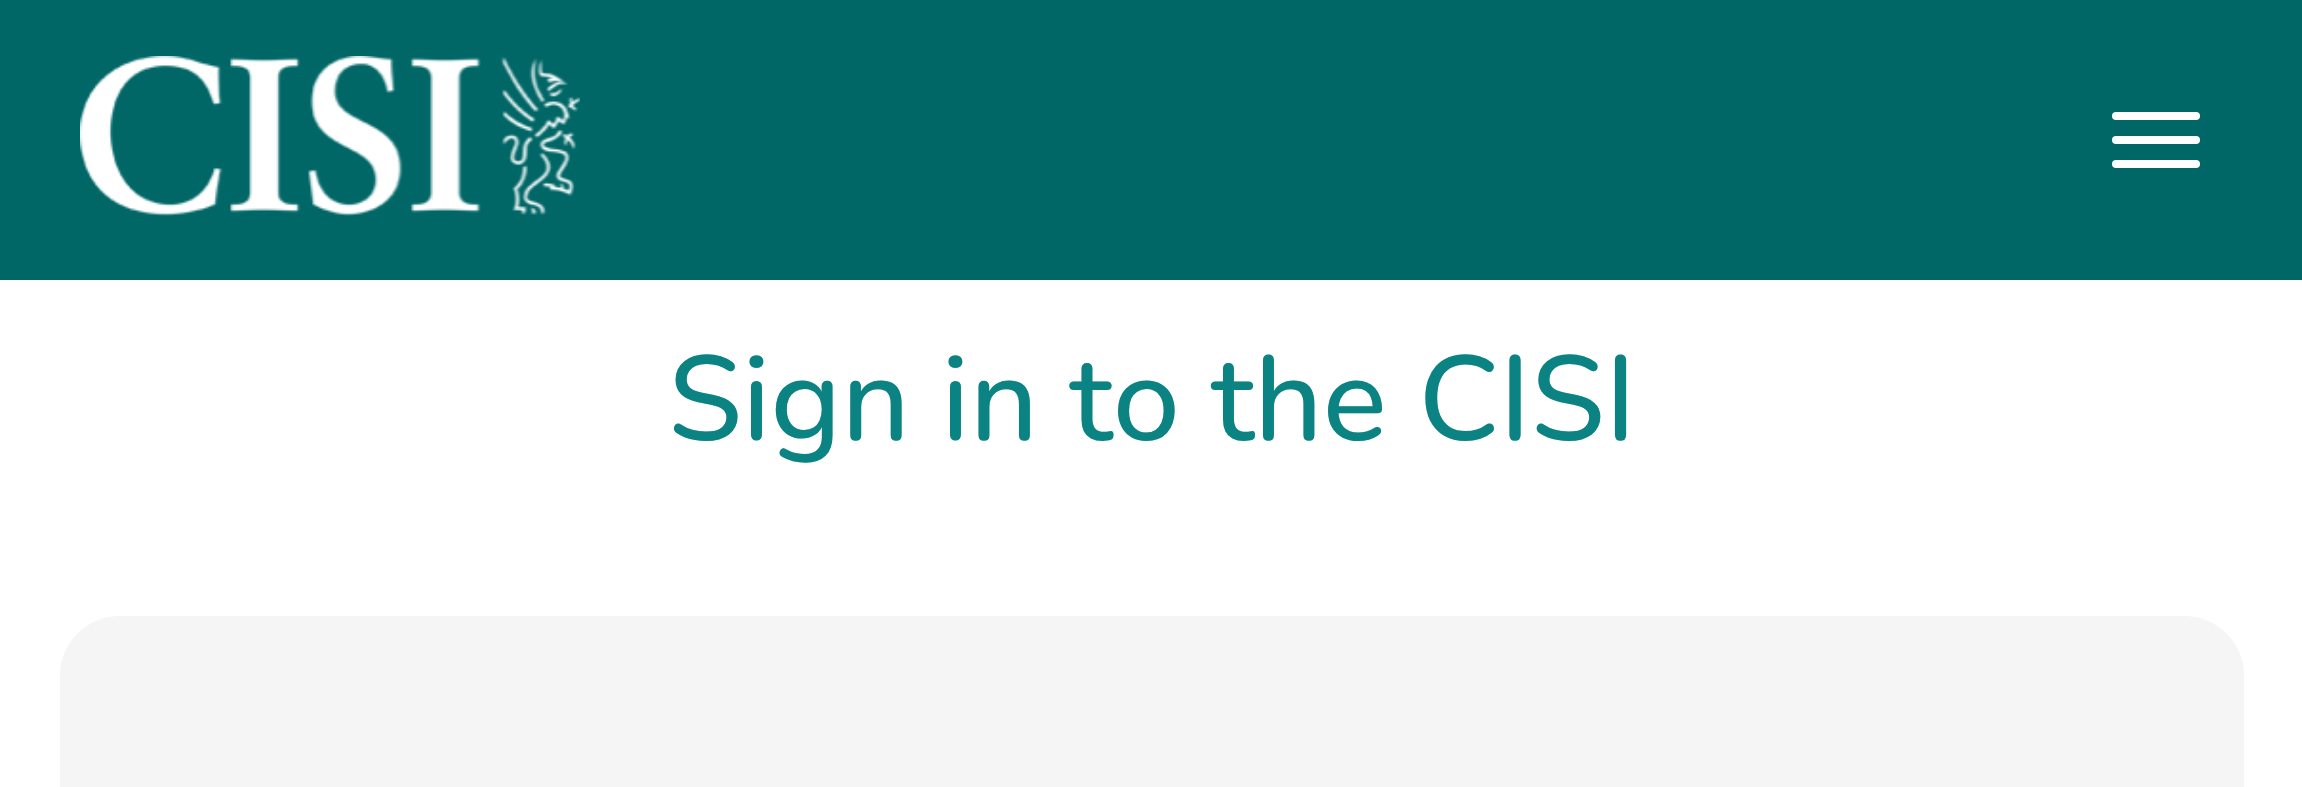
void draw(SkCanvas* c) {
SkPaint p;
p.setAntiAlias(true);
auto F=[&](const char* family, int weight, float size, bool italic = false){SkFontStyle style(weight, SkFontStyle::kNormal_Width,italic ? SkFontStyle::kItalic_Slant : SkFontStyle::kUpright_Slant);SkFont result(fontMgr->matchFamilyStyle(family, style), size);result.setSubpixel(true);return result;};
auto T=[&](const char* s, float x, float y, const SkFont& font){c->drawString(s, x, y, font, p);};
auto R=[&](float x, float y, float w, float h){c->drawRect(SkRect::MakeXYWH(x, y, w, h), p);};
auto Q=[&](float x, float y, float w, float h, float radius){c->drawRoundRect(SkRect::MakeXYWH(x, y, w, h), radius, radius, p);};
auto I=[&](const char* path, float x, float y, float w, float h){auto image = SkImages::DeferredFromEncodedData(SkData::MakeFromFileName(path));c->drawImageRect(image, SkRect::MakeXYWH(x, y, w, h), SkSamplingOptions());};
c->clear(0xffffffff);
p.setColor(0xff006666);
R(0,0,2302,280);
I("1.png",80,56,500,160);
p.setColor(0xffffffff);
Q(2112,112,88,8,4);
Q(2112,136,88,8,4);
Q(2112,160,88,8,4);
auto f1 = F("Nunito",500,120);
p.setColor(0xff0b8383);
T("Sign in to the CISI",668,440,f1);
p.setColor(0xfff5f5f5);
Q(60,616,2184,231,60);
}
